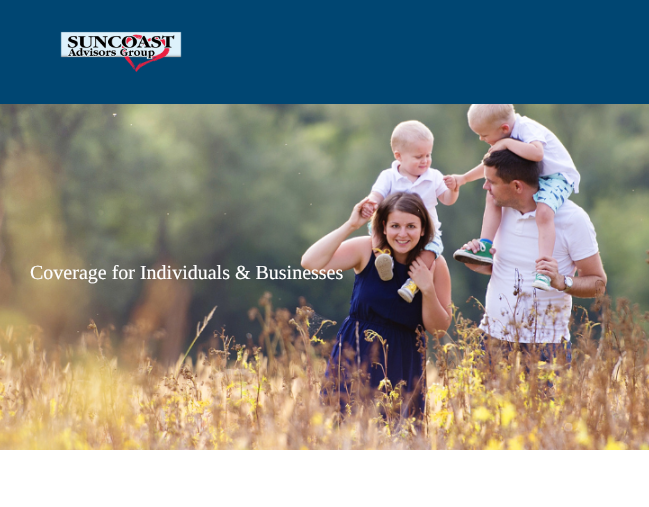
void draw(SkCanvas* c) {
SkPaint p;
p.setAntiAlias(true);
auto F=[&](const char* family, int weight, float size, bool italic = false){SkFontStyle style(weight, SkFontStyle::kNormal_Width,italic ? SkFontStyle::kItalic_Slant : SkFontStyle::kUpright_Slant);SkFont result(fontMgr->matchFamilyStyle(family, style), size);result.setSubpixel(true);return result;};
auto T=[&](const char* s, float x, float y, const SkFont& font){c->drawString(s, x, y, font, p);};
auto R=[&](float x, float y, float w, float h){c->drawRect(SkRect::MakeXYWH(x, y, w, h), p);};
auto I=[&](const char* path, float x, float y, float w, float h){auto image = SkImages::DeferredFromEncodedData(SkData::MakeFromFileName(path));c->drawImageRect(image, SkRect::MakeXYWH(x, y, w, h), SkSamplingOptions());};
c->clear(0xffffffff);
p.setColor(0xff004672);
R(0,0,649,104);
I("1.png",60,31,122,42);
I("2.png",0,104,649,346);
auto f1 = F("Liberation Serif",400,20);
p.setColor(0xffffffff);
T("Coverage for Individuals & Businesses",30,279,f1);
}
